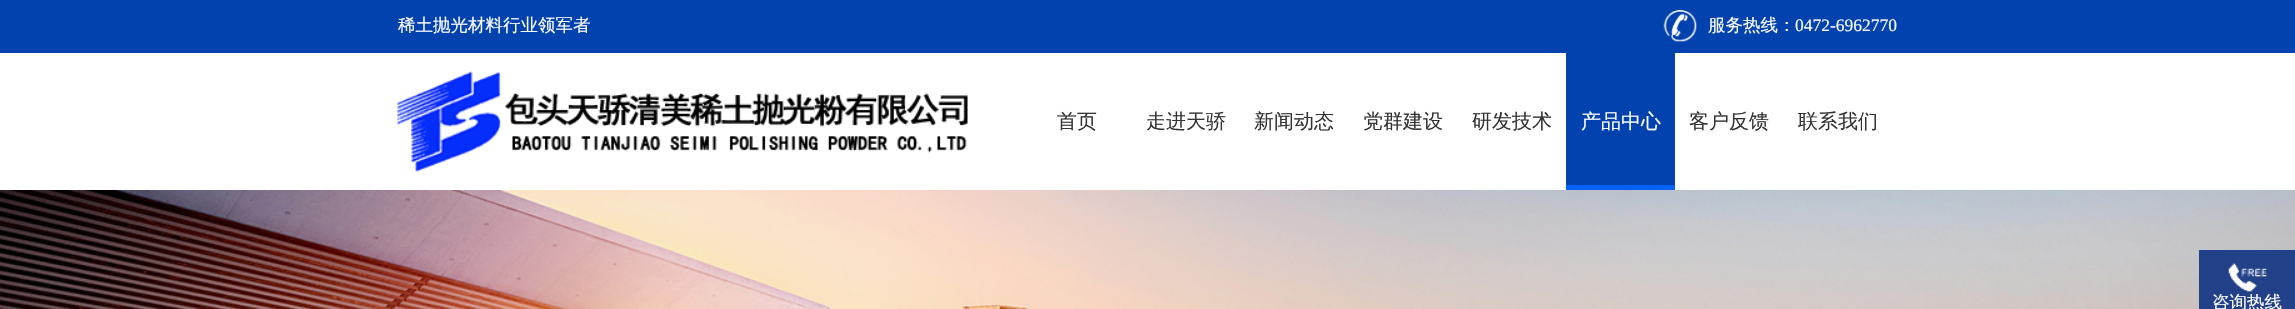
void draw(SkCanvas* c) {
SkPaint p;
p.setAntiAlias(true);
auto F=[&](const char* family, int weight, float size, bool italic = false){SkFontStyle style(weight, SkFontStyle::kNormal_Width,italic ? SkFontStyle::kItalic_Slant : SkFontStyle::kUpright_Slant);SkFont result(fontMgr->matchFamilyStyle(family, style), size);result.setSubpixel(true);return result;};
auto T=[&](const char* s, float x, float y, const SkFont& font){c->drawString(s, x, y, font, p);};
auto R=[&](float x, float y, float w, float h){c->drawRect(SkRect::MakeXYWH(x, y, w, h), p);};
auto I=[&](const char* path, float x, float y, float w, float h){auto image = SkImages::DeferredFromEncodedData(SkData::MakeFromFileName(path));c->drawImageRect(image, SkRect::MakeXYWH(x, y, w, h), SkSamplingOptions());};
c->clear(0xffffffff);
p.setColor(0xff0142ae);
R(0,0,2295,53);
auto f1 = F("WenQuanYi Zen Hei",500,17.5);
p.setColor(0xffffffff);
T("稀土抛光材料行业领军者",398,31,f1);
I("1.png",1663,10,34,32);
T("服务热线：",1708,31,f1);
auto f2 = F("Liberation Serif",400,17.5);
T("0472-6962770",1795,31,f2);
I("2.png",397,71,571,101);
auto f3 = F("WenQuanYi Zen Hei",500,20);
p.setColor(0xff333333);
T("首页",1057,128,f3);
T("走进天骄",1146,128,f3);
T("新闻动态",1254,128,f3);
T("党群建设",1363,128,f3);
T("研发技术",1472,128,f3);
p.setColor(0xff0142ae);
R(1566,53,109,132);
p.setColor(0xff0561fa);
R(1566,185,109,5);
p.setColor(0xffffffff);
T("产品中心",1581,128,f3);
p.setColor(0xff333333);
T("客户反馈",1689,128,f3);
T("联系我们",1798,128,f3);
I("3.png",0,190,2295,119);
p.setColor(0xff224189);
R(2199,250,96,59);
I("4.png",2228,263,39,29);
p.setColor(0xffffffff);
T("咨询热线",2212,308,f1);
}
